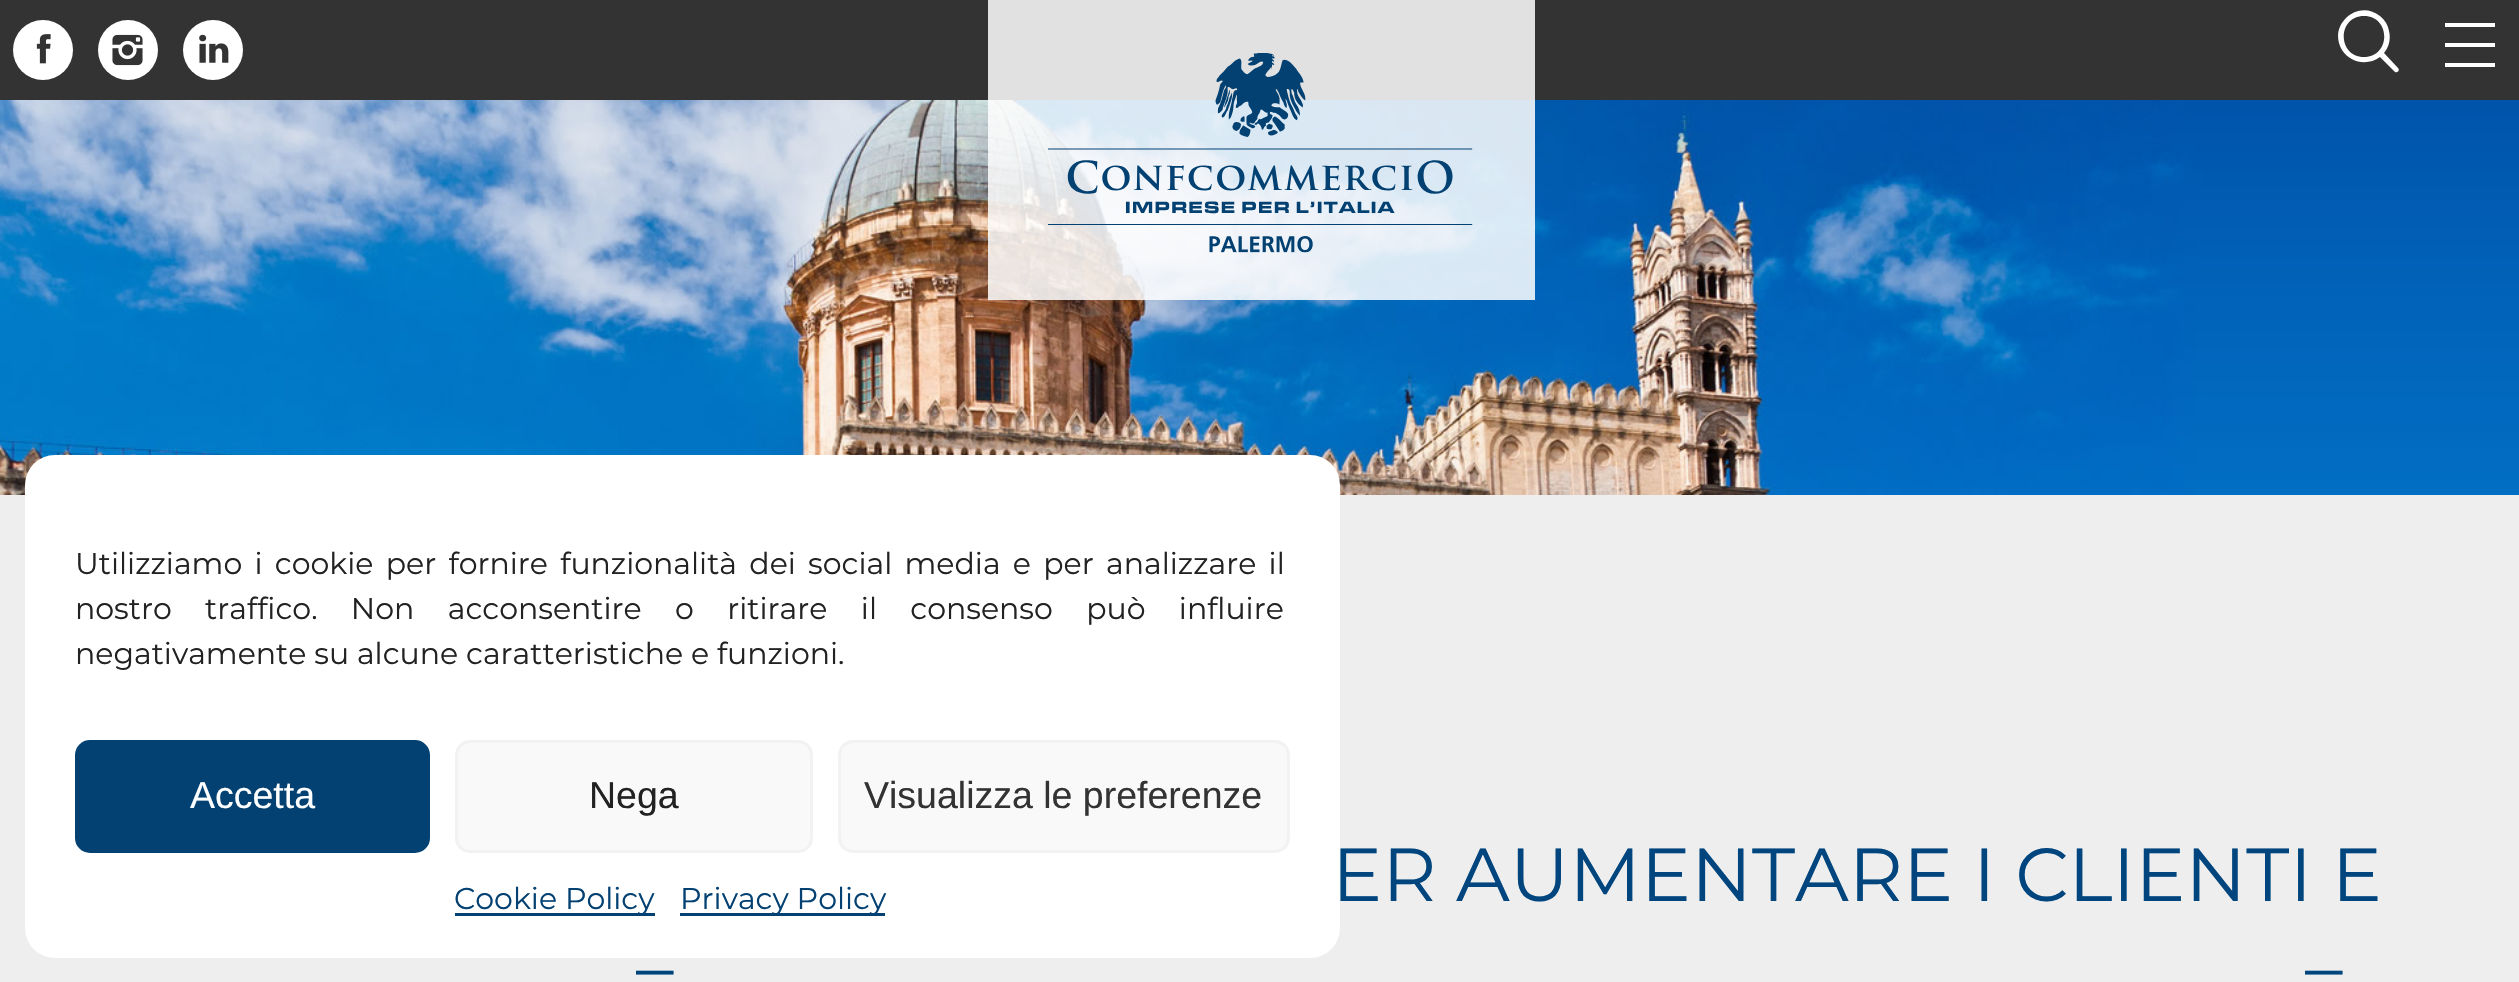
void draw(SkCanvas* c) {
SkPaint p;
p.setAntiAlias(true);
auto F=[&](const char* family, int weight, float size, bool italic = false){SkFontStyle style(weight, SkFontStyle::kNormal_Width,italic ? SkFontStyle::kItalic_Slant : SkFontStyle::kUpright_Slant);SkFont result(fontMgr->matchFamilyStyle(family, style), size);result.setSubpixel(true);return result;};
auto T=[&](const char* s, float x, float y, const SkFont& font){c->drawString(s, x, y, font, p);};
auto L=[&](const char* s, float x, float y, const SkFont& font, const SkPaint& ink, float letter, float word){std::vector<SkGlyphID> glyphs(font.countText(s, strlen(s), SkTextEncoding::kUTF8));std::vector<float> xs(glyphs.size());font.textToGlyphs(s, strlen(s), SkTextEncoding::kUTF8, glyphs);font.getXPos(glyphs, xs, x);float extra = 0;for (size_t i = 0; i < glyphs.size(); i++) {xs[i] += extra;extra += letter + word * (glyphs[i] == font.unicharToGlyph(' '));}c->drawTextBlob(SkTextBlob::MakeFromPosHGlyphs(glyphs, xs, y, font), 0, 0, ink);};
auto R=[&](float x, float y, float w, float h){c->drawRect(SkRect::MakeXYWH(x, y, w, h), p);};
auto Q=[&](float x, float y, float w, float h, float radius){c->drawRoundRect(SkRect::MakeXYWH(x, y, w, h), radius, radius, p);};
auto I=[&](const char* path, float x, float y, float w, float h){auto image = SkImages::DeferredFromEncodedData(SkData::MakeFromFileName(path));c->drawImageRect(image, SkRect::MakeXYWH(x, y, w, h), SkSamplingOptions());};
auto P=[&](const char* data, bool evenOdd = false){SkPath result = *SkParsePath::FromSVGString(data);if (evenOdd) result.setFillType(SkPathFillType::kEvenOdd);return result;};
c->clear(0xffeeeeee);
p.setColor(0xff333333);
R(0,0,2519,100);
p.setColor(0xffffffff);
c->drawCircle(43,50,30,p);
I("1.png",36,34,15,30);
c->drawCircle(128,50,30,p);
I("2.png",112,34,31,32);
c->drawCircle(213,50,30,p);
I("3.png",199,34,30,29);
c->drawPath(P("M2364 57c-27 0-27-41 0-41c27 0 27 41 0 41zm34 11l-14-15c5-6 7-14 5-22c-1-6-4-11-9-15c-22-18-53 9-38 34c8 13 26 16 38 7l15 15c3 1 5-2 3-4z"),p);
c->drawPath(P("M2445 23h50v4h-50zm0 20h50v4h-50zm0 20h50v4h-50z"),p);
I("5.png",0,100,2519,395);
p.setColor(0xd9ffffff);
R(988,0,547,300);
I("4.png",1048,53,425,200);
p.setColor(0xffffffff);
Q(25,455,1315,503,30);
auto f1 = F("Montserrat",400,30);
p.setColor(0xff222222);
L("Utilizziamo i cookie per fornire funzionalità dei social media e per analizzare il",75,574,f1,p,0,4.4);
L("nostro traffico. Non acconsentire o ritirare il consenso può influire",75,619,f1,p,0,25.5);
T("negativamente su alcune caratteristiche e funzioni.",75,664,f1);
p.setColor(0xff034172);
c->drawRoundRect(SkRect::MakeXYWH(76.5,741.5,352,110),13.5,13.5,p);
p.setStroke(true);
p.setStrokeWidth(3);
c->drawRoundRect(SkRect::MakeXYWH(76.5,741.5,352,110),13.5,13.5,p);
auto f2 = F("Liberation Sans",400,37.5);
p.setStroke(false);
p.setColor(0xffffffff);
T("Accetta",190,808,f2);
p.setColor(0xfff9f9f9);
c->drawRoundRect(SkRect::MakeXYWH(456.5,741.5,355,110),13.5,13.5,p);
p.setStroke(true);
p.setColor(0xfff2f2f2);
c->drawRoundRect(SkRect::MakeXYWH(456.5,741.5,355,110),13.5,13.5,p);
p.setStroke(false);
p.setColor(0xff222222);
T("Nega",589,808,f2);
p.setColor(0xfff9f9f9);
c->drawRoundRect(SkRect::MakeXYWH(839.5,741.5,449,110),13.5,13.5,p);
p.setStroke(true);
p.setColor(0xfff2f2f2);
c->drawRoundRect(SkRect::MakeXYWH(839.5,741.5,449,110),13.5,13.5,p);
p.setStroke(false);
p.setColor(0xff333333);
T("Visualizza le preferenze",864,808,f2);
p.setColor(0xff034172);
R(455,913,200,3);
T("Cookie Policy",454,909,f1);
R(680,913,205,3);
T("Privacy Policy",680,909,f1);
auto f3 = F("Montserrat",400,75);
p.setColor(0xff00457d);
T("ER AUMENTARE I CLIENTI E",1332,901,f3);
T("–",636,993,f3);
T("–",2305,993,f3);
}
